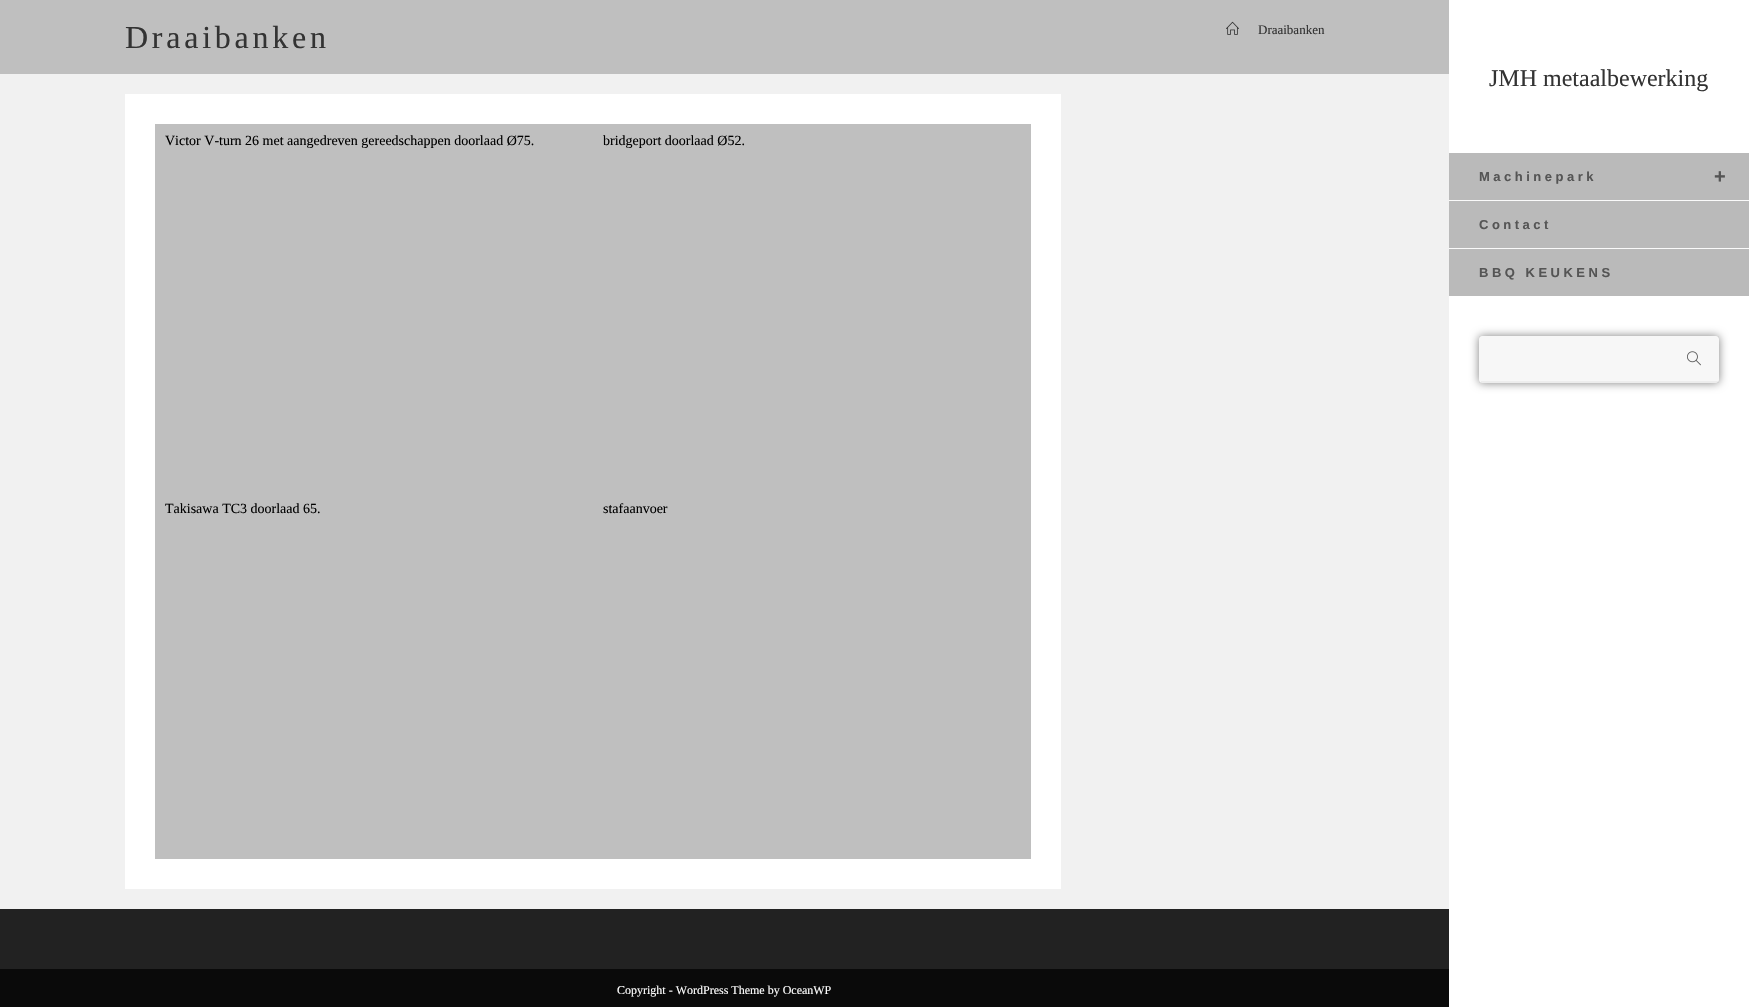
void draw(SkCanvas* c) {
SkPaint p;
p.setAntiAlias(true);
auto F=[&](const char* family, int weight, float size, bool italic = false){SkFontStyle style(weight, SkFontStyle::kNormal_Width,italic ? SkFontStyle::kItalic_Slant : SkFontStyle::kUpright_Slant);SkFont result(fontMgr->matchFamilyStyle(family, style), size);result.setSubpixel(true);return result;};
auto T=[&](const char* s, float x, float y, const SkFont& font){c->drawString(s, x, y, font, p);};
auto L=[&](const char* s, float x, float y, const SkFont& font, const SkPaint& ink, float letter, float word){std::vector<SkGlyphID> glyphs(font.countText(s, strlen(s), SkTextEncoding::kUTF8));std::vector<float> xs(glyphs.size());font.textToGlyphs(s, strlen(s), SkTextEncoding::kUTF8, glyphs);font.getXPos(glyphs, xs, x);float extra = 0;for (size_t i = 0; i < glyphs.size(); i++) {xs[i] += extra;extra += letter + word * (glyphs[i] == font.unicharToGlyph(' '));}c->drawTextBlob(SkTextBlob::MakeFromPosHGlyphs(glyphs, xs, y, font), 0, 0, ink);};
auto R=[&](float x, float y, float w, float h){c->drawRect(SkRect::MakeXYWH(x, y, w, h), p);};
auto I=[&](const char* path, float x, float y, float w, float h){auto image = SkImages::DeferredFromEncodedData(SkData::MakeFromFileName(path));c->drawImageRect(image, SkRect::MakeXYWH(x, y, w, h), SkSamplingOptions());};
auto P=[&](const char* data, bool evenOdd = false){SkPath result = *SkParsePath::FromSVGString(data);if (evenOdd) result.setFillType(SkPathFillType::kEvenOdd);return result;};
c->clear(0xfff1f1f1);
p.setColor(0xffbfbfbf);
R(0,0,1449,74);
auto f1 = F("Liberation Serif",400,32);
p.setColor(0xff333333);
L("Draaibanken",125,48,f1,p,3.75,0);
I("1.png",1226,21,13,14);
auto f2 = F("Liberation Serif",400,13);
T("Draaibanken",1258,34,f2);
p.setColor(0xffffffff);
R(125,94,936,795);
p.setColor(0xffbfbfbf);
R(155,124,876,735);
auto f3 = F("Liberation Serif",400,14);
p.setColor(0xff000000);
T("Victor V-turn 26 met aangedreven gereedschappen doorlaad Ø75.",165,145,f3);
T("bridgeport doorlaad Ø52.",603,145,f3);
T("Takisawa TC3 doorlaad 65.",165,513,f3);
T("stafaanvoer",603,513,f3);
p.setColor(0xffffffff);
R(1449,0,300,1007);
auto f4 = F("Liberation Serif",400,24);
p.setColor(0xff333333);
T("JMH metaalbewerking",1489,86,f4);
p.setColor(0xfffafafa);
R(1449,200,300,1);
p.setColor(0xffbababa);
R(1449,153,300,47);
auto f5 = F("Liberation Sans",700,13);
p.setColor(0xff555555);
L("Machinepark",1479,181,f5,p,3.5,0);
auto f6 = F("Liberation Sans",700,20);
L("+",1714,183,f6,p,3.5,0);
p.setColor(0xfffafafa);
R(1449,248,300,1);
p.setColor(0xffbababa);
R(1449,201,300,47);
p.setColor(0xff555555);
L("Contact",1479,229,f5,p,3.5,0);
p.setColor(0xffbababa);
R(1449,249,300,47);
p.setColor(0xff555555);
L("BBQ KEUKENS",1479,277,f5,p,3.5,0);
p.setColor(0xfff7f7f7);
R(1479,336,240,47);
c->save();
c->clipPath(P("M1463 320h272v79h-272zm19 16h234c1.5 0 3 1.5 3 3v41c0 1.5-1.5 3-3 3h-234c-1.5 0-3-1.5-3-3v-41c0-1.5 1.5-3 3-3z",true),true);
p.setColor(0x80000000);
p.setMaskFilter(SkMaskFilter::MakeBlur(kNormal_SkBlurStyle, 5));
c->drawRoundRect(SkRect::MakeXYWH(1479,336,240,47),3,3,p);
p.setMaskFilter(nullptr);
c->restore();
p.setColor(0x0a000000);
R(1481,381,237,2);
I("2.png",1687,351,14,15);
p.setColor(0xff222222);
R(0,909,1449,60);
p.setColor(0xff0a0a0a);
R(0,969,1449,38);
auto f7 = F("Liberation Serif",400,12);
p.setColor(0xffffffff);
T("Copyright - WordPress Theme by OceanWP",617,994,f7);
}
